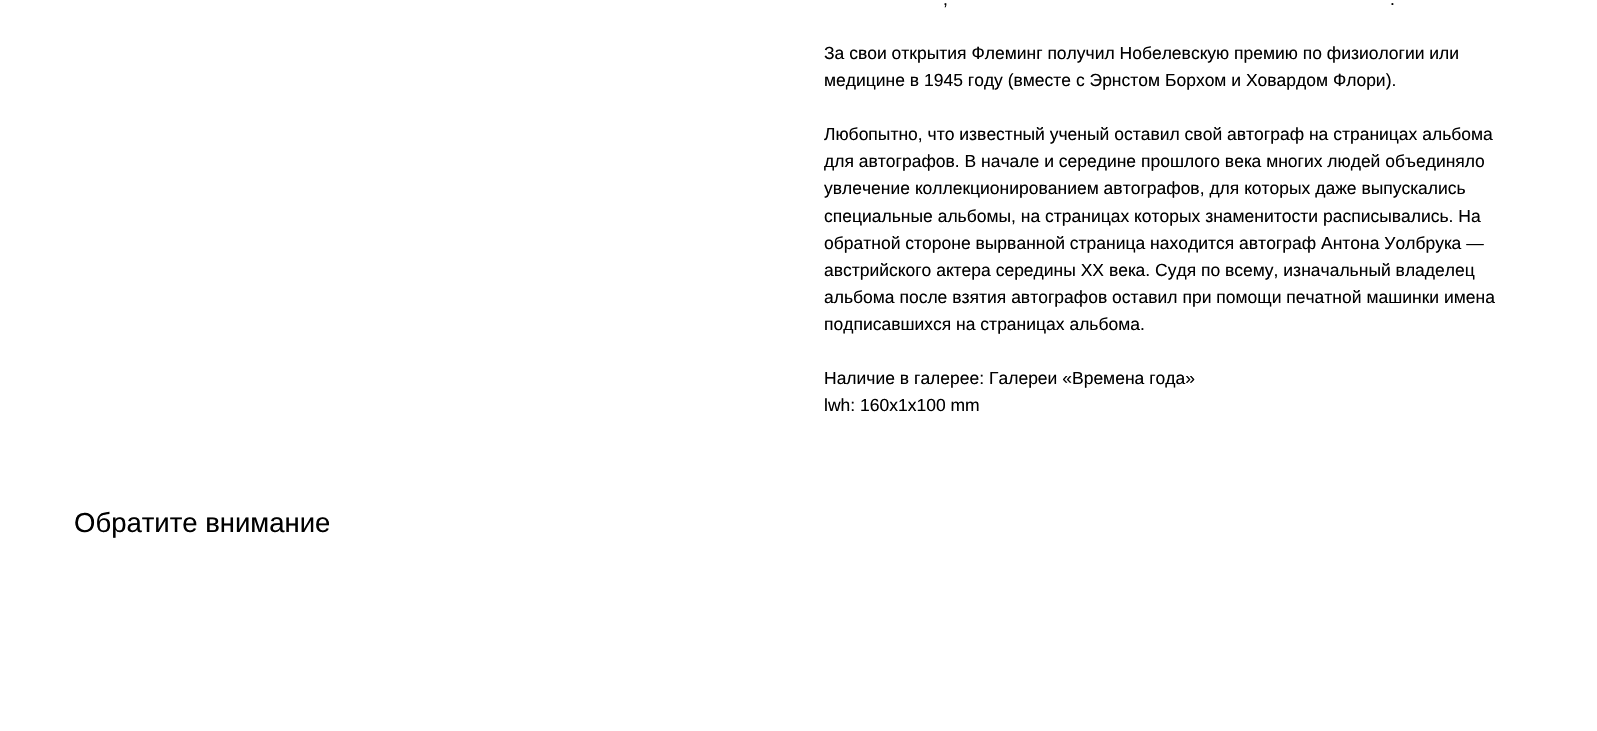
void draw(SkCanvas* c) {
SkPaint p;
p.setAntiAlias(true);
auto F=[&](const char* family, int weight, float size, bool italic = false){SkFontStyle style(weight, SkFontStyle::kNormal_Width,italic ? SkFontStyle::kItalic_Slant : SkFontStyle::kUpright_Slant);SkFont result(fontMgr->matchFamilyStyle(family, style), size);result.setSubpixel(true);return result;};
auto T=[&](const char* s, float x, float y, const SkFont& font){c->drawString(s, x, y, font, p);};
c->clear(0xffffffff);
auto f1 = F("Liberation Sans",400,17.5);
p.setColor(0xff000000);
T(",",943,5,f1);
T(".",1390,5,f1);
T("За свои открытия Флеминг получил Нобелевскую премию по физиологии или",824,59,f1);
T("медицине в 1945 году (вместе с Эрнстом Борхом и Ховардом Флори).",824,86,f1);
T("Любопытно, что известный ученый оставил свой автограф на страницах альбома",824,140,f1);
T("для автографов. В начале и середине прошлого века многих людей объединяло",824,167,f1);
T("увлечение коллекционированием автографов, для которых даже выпускались",824,194,f1);
T("специальные альбомы, на страницах которых знаменитости расписывались. На",824,222,f1);
T("обратной стороне вырванной страница находится автограф Антона Уолбрука —",824,249,f1);
T("австрийского актера середины XX века. Судя по всему, изначальный владелец",824,276,f1);
T("альбома после взятия автографов оставил при помощи печатной машинки имена",824,303,f1);
T("подписавшихся на страницах альбома.",824,330,f1);
T("Наличие в галерее: Галереи «Времена года»",824,384,f1);
T("lwh: 160x1x100 mm",824,411,f1);
auto f2 = F("Liberation Sans",400,27.5);
T("Обратите внимание",74,532,f2);
}
